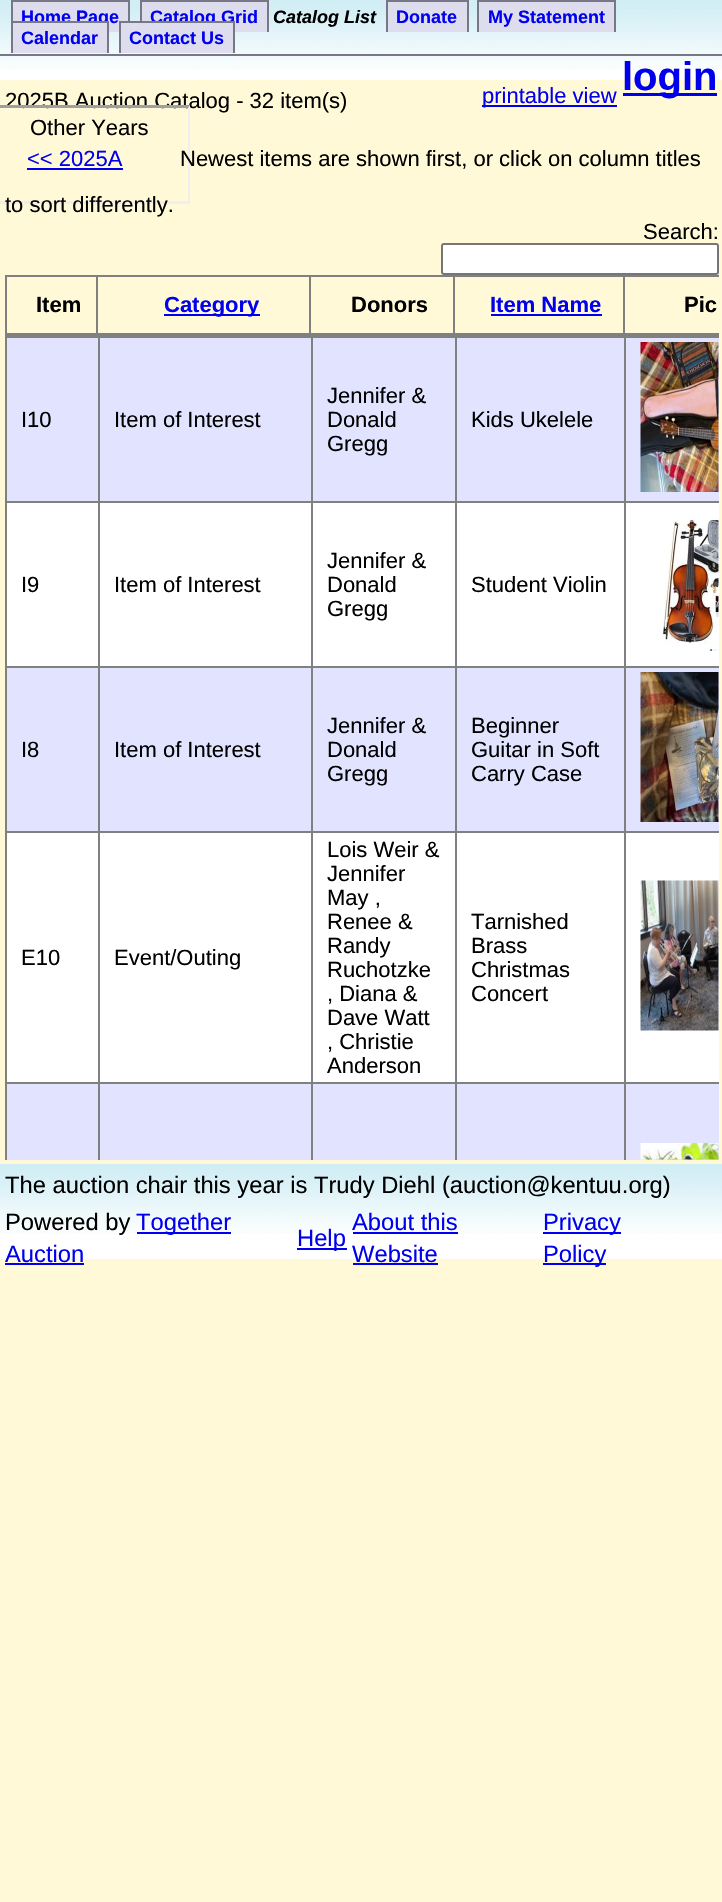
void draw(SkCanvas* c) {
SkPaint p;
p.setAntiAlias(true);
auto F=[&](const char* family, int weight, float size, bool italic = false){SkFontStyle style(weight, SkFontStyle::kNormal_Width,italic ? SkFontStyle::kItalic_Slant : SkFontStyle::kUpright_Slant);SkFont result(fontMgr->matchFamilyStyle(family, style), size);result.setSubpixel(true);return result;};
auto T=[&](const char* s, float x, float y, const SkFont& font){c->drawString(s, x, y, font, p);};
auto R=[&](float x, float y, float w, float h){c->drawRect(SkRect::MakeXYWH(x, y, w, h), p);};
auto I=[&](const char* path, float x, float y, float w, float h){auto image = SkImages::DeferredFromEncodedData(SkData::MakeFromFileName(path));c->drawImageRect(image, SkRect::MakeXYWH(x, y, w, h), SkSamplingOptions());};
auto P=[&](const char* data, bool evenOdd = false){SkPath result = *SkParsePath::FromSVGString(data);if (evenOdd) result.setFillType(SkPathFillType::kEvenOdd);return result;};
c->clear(0xfffff9d8);
p.setColor(0xffffffff);
R(0,70,722,10);
I("1.png",0,0,722,70);
p.setColor(0xff777788);
R(0,54,722,2);
p.setColor(0xffddddee);
R(13,2,115,30);
auto f1 = F("Liberation Sans",700,18);
p.setColor(0xff0000ee);
T("Home Page",21,23,f1);
p.setColor(0xff777788);
R(11,0,118,2);
R(128,0,2,21);
R(11,0,2,21);
p.setColor(0xffddddee);
R(142,2,125,30);
p.setColor(0xff0000ee);
T("Catalog Grid",150,23,f1);
p.setColor(0xff777788);
R(140,0,129,2);
R(267,0,2,32);
R(140,0,2,21);
auto f2 = F("Liberation Sans",700,18,true);
p.setColor(0xff000000);
T("Catalog List",273,23,f2);
p.setColor(0xffddddee);
R(388,2,79,30);
p.setColor(0xff0000ee);
T("Donate",396,23,f1);
p.setColor(0xff777788);
R(386,0,82,2);
R(467,0,2,32);
R(386,0,2,32);
p.setColor(0xffddddee);
R(479,2,135,30);
p.setColor(0xff0000ee);
T("My Statement",488,23,f1);
p.setColor(0xff777788);
R(477,0,138,2);
R(614,0,2,32);
R(477,0,2,32);
p.setColor(0xffddddee);
R(13,23,94,30);
p.setColor(0xff0000ee);
T("Calendar",21,44,f1);
p.setColor(0xff777788);
R(11,21,97,2);
R(107,21,2,32);
R(11,21,2,32);
p.setColor(0xffddddee);
R(121,23,112,30);
p.setColor(0xff0000ee);
T("Contact Us",129,44,f1);
p.setColor(0xff777788);
R(119,21,115,2);
R(233,21,2,32);
R(119,21,2,32);
p.setColor(0xff0000ee);
R(623,93,94,3);
auto f3 = F("Liberation Sans",700,40);
T("login",622,90,f3);
auto f4 = F("Liberation Sans",400,22);
p.setColor(0xff000000);
T("2025B Auction Catalog - 32 item(s)",5,108,f4);
p.setColor(0xff0000ee);
R(482,105,135,2);
T("printable view",482,103,f4);
p.setColor(0xff9f9f9f);
c->drawPath(P("M-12 105h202l-2 3h-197z"),p);
p.setColor(0xffefefef);
c->drawPath(P("M190 105v99l-2-3v-93z"),p);
c->drawPath(P("M190 204h-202l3-3h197z"),p);
p.setColor(0xff000000);
T("Other Years",30,135,f4);
p.setColor(0xff0000ee);
T("<< 2025A",27,166,f4);
R(27,168,96,2);
p.setColor(0xff000000);
T("Newest items are shown first, or click on column titles",180,166,f4);
T("to sort differently.",5,212,f4);
T("Search:",643,239,f4);
p.setColor(0xffffffff);
c->drawRoundRect(SkRect::MakeXYWH(442,244,276,30),2,2,p);
p.setStroke(true);
p.setStrokeWidth(2);
p.setColor(0xff767676);
c->drawRoundRect(SkRect::MakeXYWH(442,244,276,30),2,2,p);
p.setStroke(false);
p.setColor(0xff808080);
R(5,275,714,2);
R(5,333,714,3);
R(5,275,2,60);
auto f5 = F("Liberation Sans",700,22);
p.setColor(0xff000000);
T("Item",36,312,f5);
p.setColor(0xff808080);
R(96,275,2,60);
p.setColor(0xff0000ee);
R(164,314,96,2);
T("Category",164,312,f5);
p.setColor(0xff808080);
R(309,275,2,60);
p.setColor(0xff000000);
T("Donors",351,312,f5);
p.setColor(0xff808080);
R(453,275,2,60);
p.setColor(0xff0000ee);
T("Item Name",490,312,f5);
R(491,314,111,2);
p.setColor(0xff808080);
R(623,275,2,60);
p.setColor(0xff000000);
T("Pic",684,312,f5);
p.setColor(0xff808080);
R(5,335,2,825);
p.setColor(0xffe2e4ff);
R(7,338,712,163);
p.setColor(0xff808080);
R(624,336,95,2);
R(624,501,95,2);
p.setColor(0xffffffff);
R(7,503,712,163);
p.setColor(0xff808080);
R(624,666,95,2);
p.setColor(0xffe2e4ff);
R(7,668,712,163);
p.setColor(0xff808080);
R(624,831,95,2);
p.setColor(0xffffffff);
R(7,833,712,249);
p.setColor(0xff808080);
R(624,1082,95,2);
p.setColor(0xffe2e4ff);
R(7,1084,712,76);
p.setColor(0xff808080);
R(624,1082,2,78);
R(455,1082,171,2);
R(624,831,2,252);
R(455,831,171,2);
R(624,666,2,167);
R(455,666,171,2);
R(624,501,2,167);
R(455,501,171,2);
R(624,336,2,167);
R(455,336,171,2);
R(455,1082,2,78);
R(311,1082,145,2);
R(455,831,2,252);
R(311,831,145,2);
R(455,666,2,167);
R(311,666,145,2);
R(455,501,2,167);
R(311,501,145,2);
R(455,336,2,167);
R(311,336,145,2);
R(311,1082,2,78);
R(98,1082,214,2);
R(311,831,2,252);
R(98,831,214,2);
R(311,666,2,167);
R(98,666,214,2);
R(311,501,2,167);
R(98,501,214,2);
R(311,336,2,167);
R(98,336,214,2);
R(98,1082,2,78);
R(5,1082,94,2);
R(98,831,2,252);
R(5,831,94,2);
R(98,666,2,167);
R(5,666,94,2);
R(98,501,2,167);
R(5,501,94,2);
R(98,336,2,167);
R(5,336,94,2);
p.setColor(0xff000000);
T("I10",21,427,f4);
T("Item of Interest",114,427,f4);
T("Jennifer &",327,403,f4);
T("Donald",327,427,f4);
T("Gregg",327,451,f4);
T("Kids Ukelele",471,427,f4);
I("2.png",640,342,79,150);
T("I9",21,592,f4);
T("Item of Interest",114,592,f4);
T("Jennifer &",327,568,f4);
T("Donald",327,592,f4);
T("Gregg",327,616,f4);
T("Student Violin",471,592,f4);
I("3.png",661,516,58,136);
T("I8",21,757,f4);
T("Item of Interest",114,757,f4);
T("Jennifer &",327,733,f4);
T("Donald",327,757,f4);
T("Gregg",327,781,f4);
T("Beginner",471,733,f4);
T("Guitar in Soft",471,757,f4);
T("Carry Case",471,781,f4);
I("4.png",640,672,79,150);
T("E10",21,965,f4);
T("Event/Outing",114,965,f4);
T("Lois Weir &",327,857,f4);
T("Jennifer",327,881,f4);
T("May ,",327,905,f4);
T("Renee &",327,929,f4);
T("Randy",327,953,f4);
T("Ruchotzke",327,977,f4);
T(", Diana &",327,1001,f4);
T("Dave Watt",327,1025,f4);
T(", Christie",327,1049,f4);
T("Anderson",327,1073,f4);
T("Tarnished",471,929,f4);
T("Brass",471,953,f4);
T("Christmas",471,977,f4);
T("Concert",471,1001,f4);
I("5.png",640,880,79,151);
I("6.png",640,1143,79,17);
p.setColor(0xffffffff);
R(0,1234,722,25);
I("7.png",0,1164,722,70);
auto f6 = F("Liberation Sans",400,23.75);
p.setColor(0xff000000);
T("The auction chair this year is Trudy Diehl (auction@kentuu.org)",5,1193,f6);
T("Powered by",5,1230,f6);
p.setColor(0xff0000ee);
R(137,1232,94,2);
T("Together",136,1230,f6);
T("Auction",5,1262,f6);
R(5,1263,79,2);
R(297,1248,50,2);
T("Help",297,1246,f6);
T("About this",352,1230,f6);
R(353,1232,105,2);
T("Website",352,1262,f6);
R(353,1263,85,2);
R(543,1232,78,2);
T("Privacy",543,1230,f6);
R(543,1263,63,2);
T("Policy",543,1262,f6);
}
